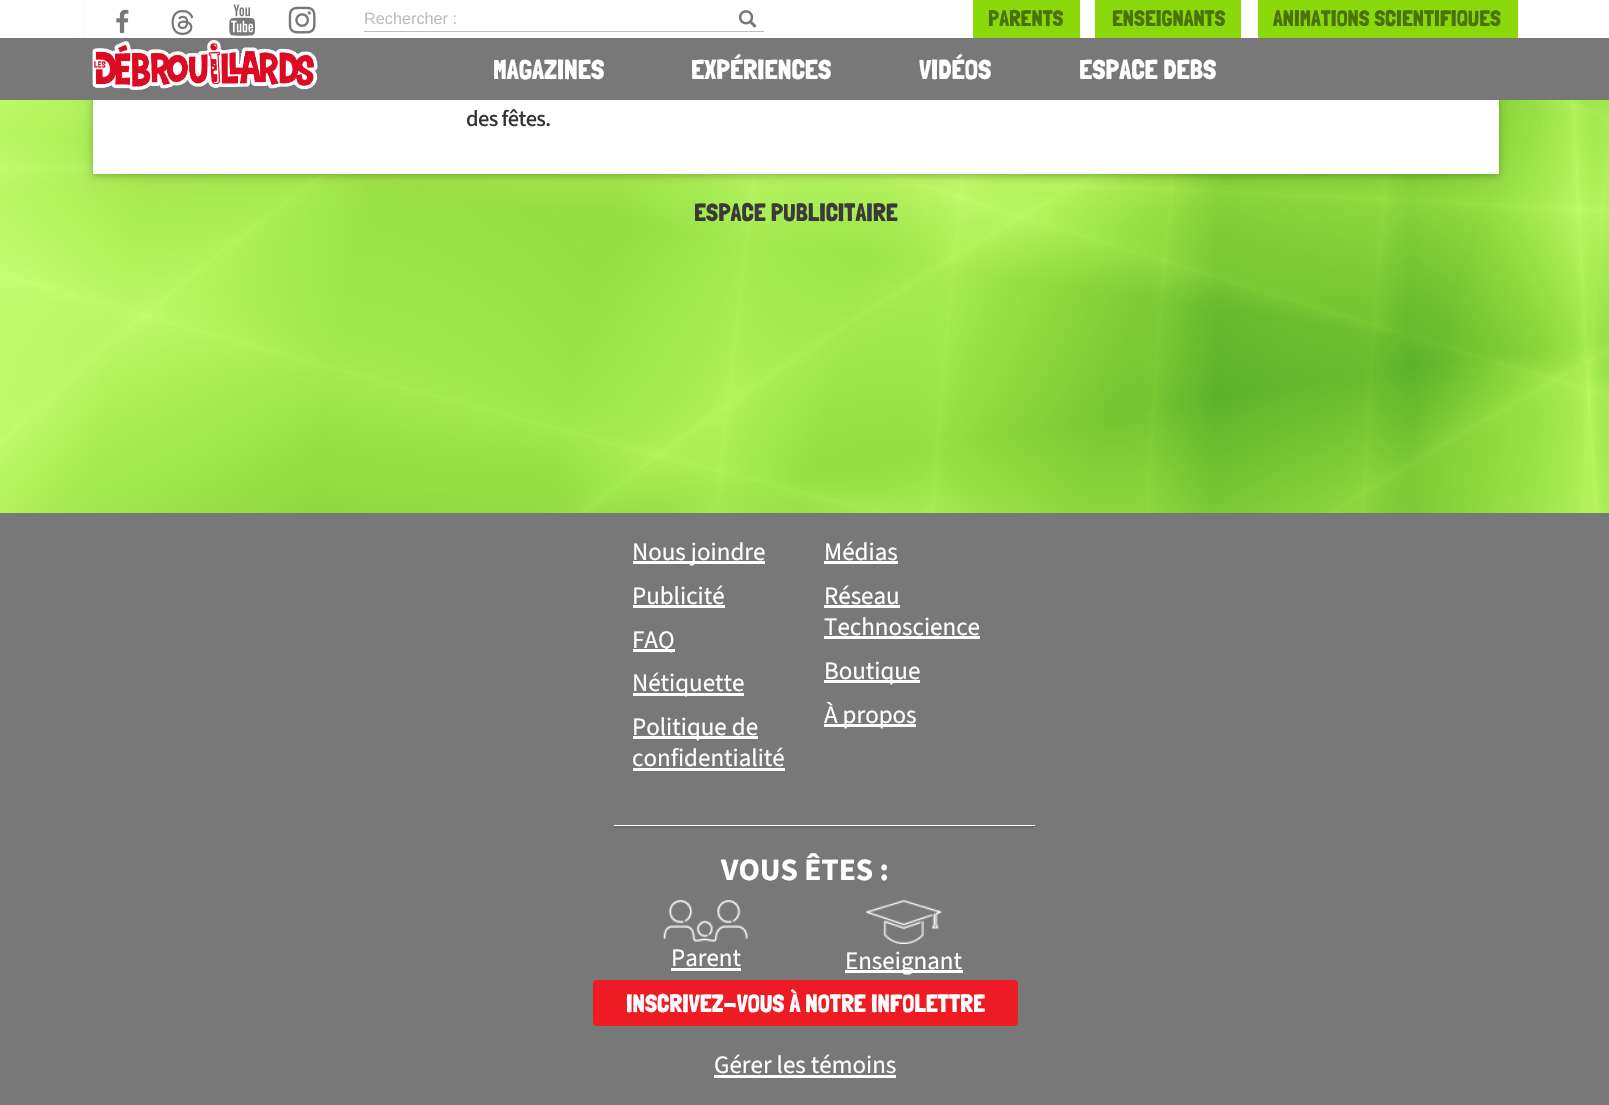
void draw(SkCanvas* c) {
SkPaint p;
p.setAntiAlias(true);
auto F=[&](const char* family, int weight, float size, bool italic = false){SkFontStyle style(weight, SkFontStyle::kNormal_Width,italic ? SkFontStyle::kItalic_Slant : SkFontStyle::kUpright_Slant);SkFont result(fontMgr->matchFamilyStyle(family, style), size);result.setSubpixel(true);return result;};
auto T=[&](const char* s, float x, float y, const SkFont& font){c->drawString(s, x, y, font, p);};
auto L=[&](const char* s, float x, float y, const SkFont& font, const SkPaint& ink, float letter, float word){std::vector<SkGlyphID> glyphs(font.countText(s, strlen(s), SkTextEncoding::kUTF8));std::vector<float> xs(glyphs.size());font.textToGlyphs(s, strlen(s), SkTextEncoding::kUTF8, glyphs);font.getXPos(glyphs, xs, x);float extra = 0;for (size_t i = 0; i < glyphs.size(); i++) {xs[i] += extra;extra += letter + word * (glyphs[i] == font.unicharToGlyph(' '));}c->drawTextBlob(SkTextBlob::MakeFromPosHGlyphs(glyphs, xs, y, font), 0, 0, ink);};
auto R=[&](float x, float y, float w, float h){c->drawRect(SkRect::MakeXYWH(x, y, w, h), p);};
auto Q=[&](float x, float y, float w, float h, float radius){c->drawRoundRect(SkRect::MakeXYWH(x, y, w, h), radius, radius, p);};
auto I=[&](const char* path, float x, float y, float w, float h){auto image = SkImages::DeferredFromEncodedData(SkData::MakeFromFileName(path));c->drawImageRect(image, SkRect::MakeXYWH(x, y, w, h), SkSamplingOptions());};
c->clear(0xffffffff);
I("1.png",0,100,1609,413);
p.setColor(0x1f000000);
p.setMaskFilter(SkMaskFilter::MakeBlur(kNormal_SkBlurStyle, 6));
c->drawRect(SkRect::MakeXYWH(93,-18,1406,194),p);
p.setMaskFilter(nullptr);
p.setColor(0x29000000);
p.setMaskFilter(SkMaskFilter::MakeBlur(kNormal_SkBlurStyle, 3));
c->drawRect(SkRect::MakeXYWH(93,-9,1406,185),p);
p.setMaskFilter(nullptr);
p.setColor(0xff787878);
R(0,38,1609,62);
p.setColor(0xffffffff);
R(85,0,1422,38);
I("2.png",116,9,13,25);
I("3.png",171,10,23,25);
I("4.png",229,4,27,32);
I("5.png",288,6,28,28);
auto f1 = F("Liberation Sans",400,16.25);
p.setColor(0xffbdbdbd);
T("Rechercher :",364,24,f1);
I("6.png",738,10,19,18);
R(364,31,400,1);
p.setColor(0xff8bd90a);
R(973,0,107,38);
auto f2 = F("Londrina Solid",400,22.5);
p.setColor(0xff497305);
T("PARENTS",988,26,f2);
p.setColor(0xff8bd90a);
R(1095,0,146,38);
p.setColor(0xff497305);
T("ENSEIGNANTS",1112,26,f2);
p.setColor(0xff8bd90a);
R(1258,0,260,38);
p.setColor(0xff497305);
T("ANIMATIONS SCIENTIFIQUES",1273,26,f2);
I("7.png",92,40,226,50);
auto f3 = F("Londrina Solid",400,27.5);
p.setColor(0xffffffff);
T("MAGAZINES",493,79,f3);
T("EXPÉRIENCES",691,79,f3);
T("VIDÉOS",919,79,f3);
T("ESPACE DEBS",1079,79,f3);
R(93,100,1406,74);
auto f4 = F("Source Sans 3",500,22.5);
p.setColor(0xff333333);
L("des fêtes.",466,126,f4,p,-.6,0);
auto f5 = F("Londrina Solid",400,25);
p.setColor(0xff3a3a3a);
T("ESPACE PUBLICITAIRE",694,221,f5);
p.setColor(0xff787878);
R(0,513,1609,592);
p.setColor(0xffffffff);
R(633,561,132,3);
auto f6 = F("Source Sans 3",400,25);
T("Nous joindre",632,560,f6);
T("Publicité",632,604,f6);
R(633,605,92,3);
R(633,649,42,3);
T("FAQ",632,648,f6);
R(633,693,111,3);
T("Nétiquette",632,691,f6);
R(633,736,125,3);
T("Politique de",632,735,f6);
T("confidentialité",632,766,f6);
R(633,768,152,3);
T("Médias",824,560,f6);
R(824,561,74,3);
T("Réseau",824,604,f6);
R(824,605,76,3);
T("Technoscience",824,635,f6);
R(824,636,156,3);
R(824,680,96,3);
T("Boutique",824,679,f6);
R(824,724,92,3);
T("À propos",824,723,f6);
p.setColor(0xff6a6a6a);
R(614,826,421,2);
p.setColor(0xffffffff);
R(614,825,421,1);
auto f7 = F("Source Sans 3",700,31.25);
T("VOUS ÊTES :",721,880,f7);
I("8.png",663,900,85,42);
T("Parent",671,966,f6);
R(671,968,70,3);
I("9.png",866,900,76,44);
R(845,970,118,3);
T("Enseignant",845,969,f6);
p.setColor(0xffed1c24);
Q(593,980,425,46,4);
p.setColor(0xffffffff);
T("INSCRIVEZ-VOUS À NOTRE INFOLETTRE",626,1012,f5);
T("Gérer les témoins",714,1073,f6);
R(714,1075,182,3);
}
